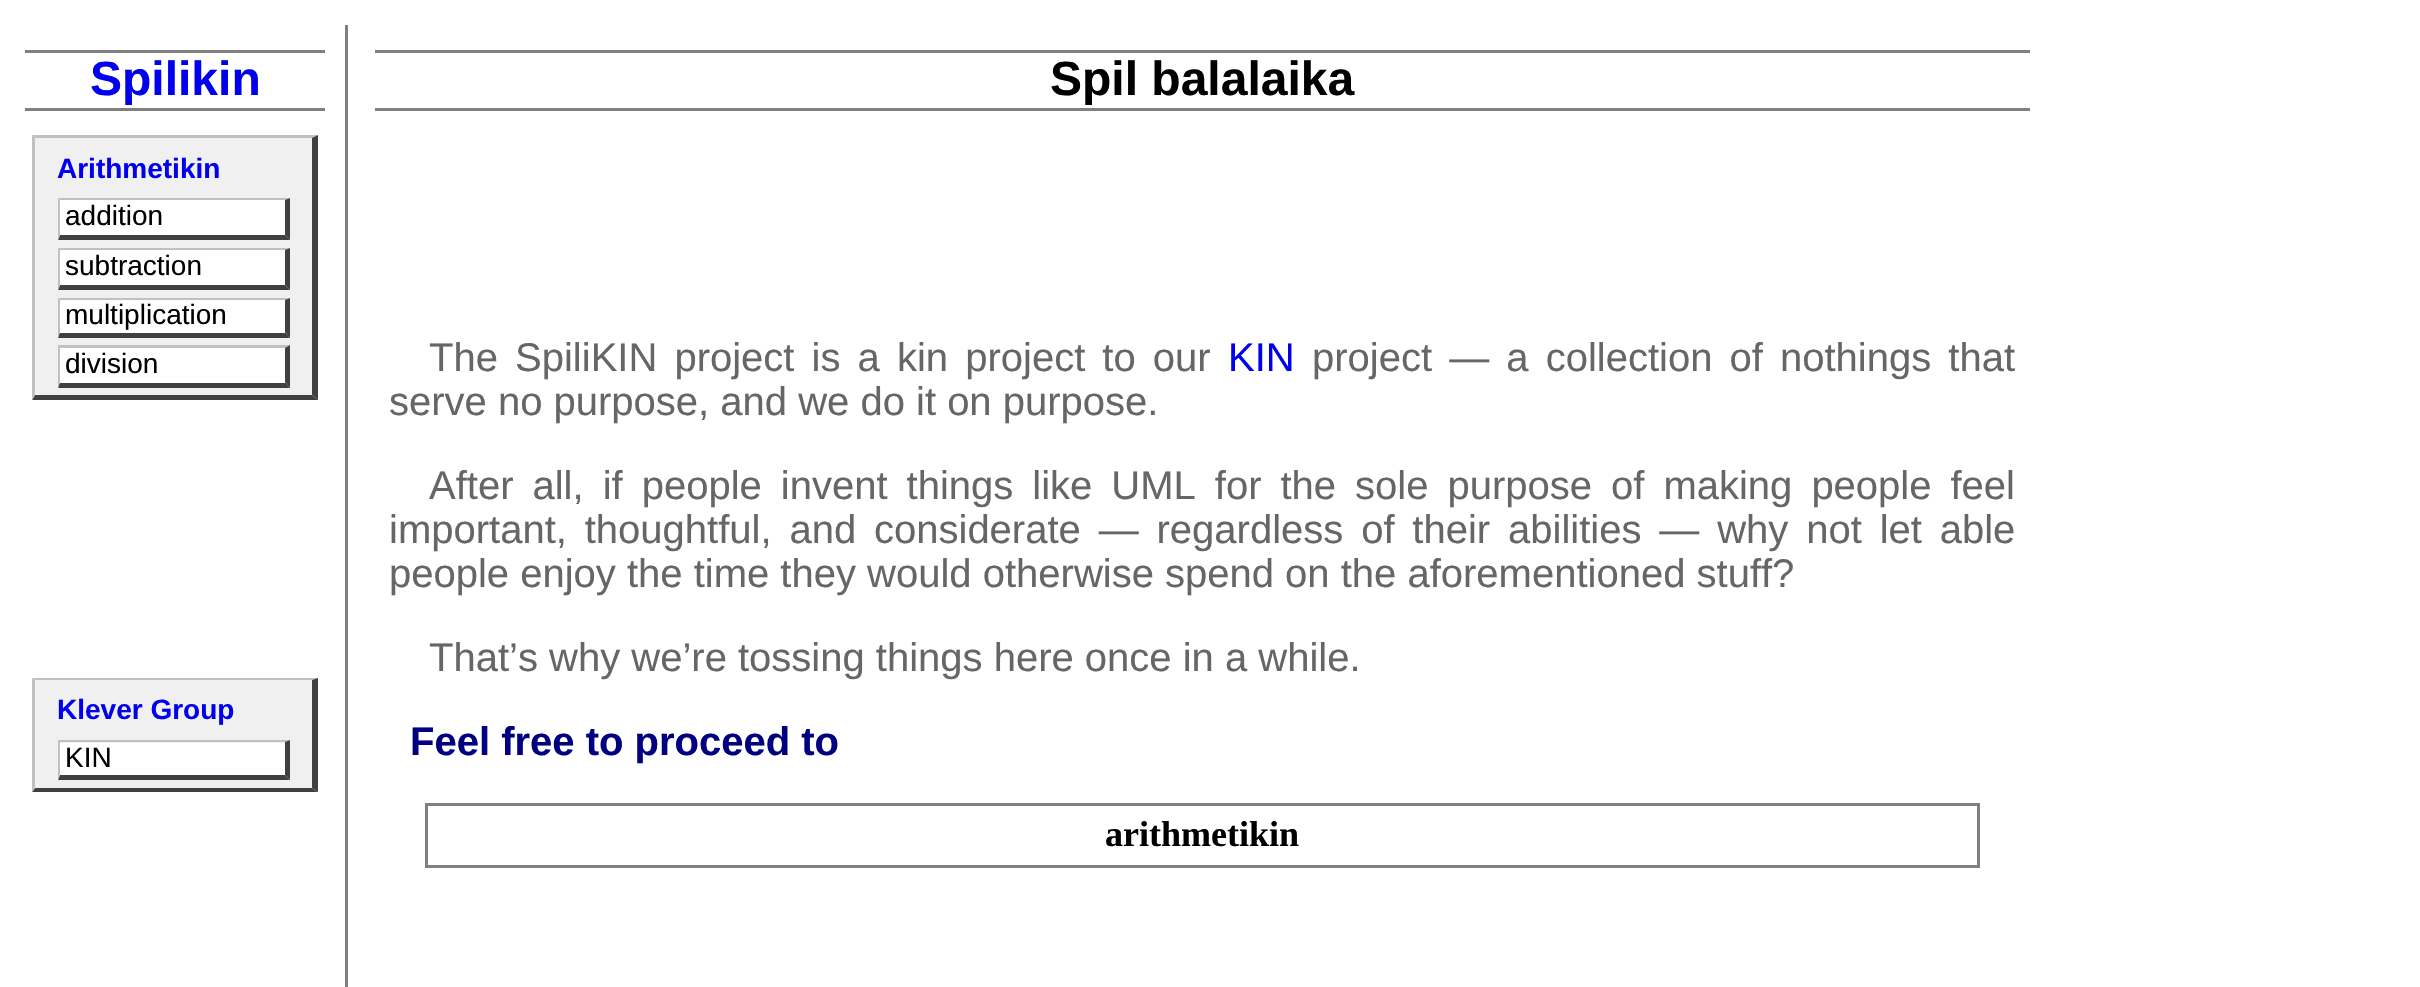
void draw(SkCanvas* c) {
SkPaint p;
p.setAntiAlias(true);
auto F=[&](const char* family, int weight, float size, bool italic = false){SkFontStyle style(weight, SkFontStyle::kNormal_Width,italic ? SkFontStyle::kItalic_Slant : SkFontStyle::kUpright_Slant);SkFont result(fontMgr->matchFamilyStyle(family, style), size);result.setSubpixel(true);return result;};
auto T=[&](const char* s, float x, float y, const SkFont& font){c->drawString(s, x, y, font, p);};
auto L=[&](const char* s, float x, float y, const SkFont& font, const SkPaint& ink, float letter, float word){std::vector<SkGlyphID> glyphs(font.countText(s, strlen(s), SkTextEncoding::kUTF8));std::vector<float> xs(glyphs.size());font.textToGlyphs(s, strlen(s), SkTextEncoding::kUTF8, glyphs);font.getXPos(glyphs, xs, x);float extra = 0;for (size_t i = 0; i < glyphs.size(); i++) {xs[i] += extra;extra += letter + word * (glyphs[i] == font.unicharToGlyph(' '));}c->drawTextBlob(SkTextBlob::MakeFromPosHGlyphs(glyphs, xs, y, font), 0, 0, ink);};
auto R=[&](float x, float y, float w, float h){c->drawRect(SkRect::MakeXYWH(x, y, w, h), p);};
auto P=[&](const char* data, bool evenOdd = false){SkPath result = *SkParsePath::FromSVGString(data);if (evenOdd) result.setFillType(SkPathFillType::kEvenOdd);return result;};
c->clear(0xffffffff);
p.setColor(0xff808080);
R(345,25,3,962);
R(25,50,300,3);
R(25,108,300,3);
auto f1 = F("Liberation Sans",700,48);
p.setColor(0xff0000ee);
T("Spilikin",90,95,f1);
p.setColor(0xfff0f0f0);
R(35,138,277,257);
p.setColor(0xffc0c0c0);
c->drawPath(P("M32 135h286l-6 3h-277z"),p);
p.setColor(0xff404040);
c->drawPath(P("M318 135v265l-6-5v-257z"),p);
c->drawPath(P("M318 400h-286l3-5h277z"),p);
p.setColor(0xffc0c0c0);
c->drawPath(P("M32 400v-265l3 3v257z"),p);
auto f2 = F("Liberation Sans",700,28);
p.setColor(0xff0000ee);
T("Arithmetikin",57,178,f2);
p.setColor(0xffffffff);
R(60,200,225,35);
p.setColor(0xffc0c0c0);
c->drawPath(P("M58 198h232l-5 2h-225z"),p);
p.setColor(0xff404040);
c->drawPath(P("M290 198v42l-5-5v-35z"),p);
c->drawPath(P("M290 240h-232l2-5h225z"),p);
p.setColor(0xffc0c0c0);
c->drawPath(P("M58 240v-42l2 2v35z"),p);
auto f3 = F("Liberation Sans",400,28);
p.setColor(0xff000000);
T("addition",65,225,f3);
p.setColor(0xffffffff);
R(60,250,225,35);
p.setColor(0xffc0c0c0);
c->drawPath(P("M58 248h232l-5 2h-225z"),p);
p.setColor(0xff404040);
c->drawPath(P("M290 248v42l-5-5v-35z"),p);
c->drawPath(P("M290 290h-232l2-5h225z"),p);
p.setColor(0xffc0c0c0);
c->drawPath(P("M58 290v-42l2 2v35z"),p);
p.setColor(0xff000000);
T("subtraction",65,275,f3);
p.setColor(0xffc0c0c0);
c->drawPath(P("M58 298h232l-5 2h-225z"),p);
p.setColor(0xff404040);
c->drawPath(P("M290 298v40l-5-6v-32z"),p);
c->drawPath(P("M290 338h-232l2-6h225z"),p);
p.setColor(0xffc0c0c0);
c->drawPath(P("M58 338v-40l2 2v32z"),p);
p.setColor(0xffffffff);
R(60,300,225,33);
p.setColor(0xff000000);
T("multiplication",65,324,f3);
p.setColor(0xffc0c0c0);
c->drawPath(P("M58 345h232l-5 3h-225z"),p);
p.setColor(0xff404040);
c->drawPath(P("M290 345v43l-5-6v-34z"),p);
c->drawPath(P("M290 388h-232l2-6h225z"),p);
p.setColor(0xffc0c0c0);
c->drawPath(P("M58 388v-43l2 3v34z"),p);
p.setColor(0xffffffff);
R(60,348,225,35);
p.setColor(0xff000000);
T("division",65,373,f3);
p.setColor(0xfff0f0f0);
R(35,680,277,108);
p.setColor(0xffc0c0c0);
c->drawPath(P("M32 678h286l-6 2h-277z"),p);
p.setColor(0xff404040);
c->drawPath(P("M318 678v114l-6-4v-108z"),p);
c->drawPath(P("M318 792h-286l3-4h277z"),p);
p.setColor(0xffc0c0c0);
c->drawPath(P("M32 792v-114l3 2v108z"),p);
p.setColor(0xff0000ee);
T("Klever Group",57,719,f2);
p.setColor(0xffffffff);
R(60,743,225,32);
p.setColor(0xffc0c0c0);
c->drawPath(P("M58 740h232l-5 2h-225z"),p);
p.setColor(0xff404040);
c->drawPath(P("M290 740v40l-5-5v-33z"),p);
c->drawPath(P("M290 780h-232l2-5h225z"),p);
p.setColor(0xffc0c0c0);
c->drawPath(P("M58 780v-40l2 2v33z"),p);
p.setColor(0xff000000);
T("KIN",65,767,f3);
p.setColor(0xff808080);
R(375,50,1655,3);
R(375,108,1655,3);
p.setColor(0xff000000);
T("Spil balalaika",1050,95,f1);
auto f4 = F("Liberation Sans",400,40);
p.setColor(0xff666666);
L("The SpiliKIN project is a kin project to our",429,371,f4,p,0,6);
p.setColor(0xff0000ee);
T("KIN",1228,371,f4);
p.setColor(0xff666666);
L("project — a collection of nothings that",1312,371,f4,p,0,6);
T("serve no purpose, and we do it on purpose.",389,415,f4);
L("After all, if people invent things like UML for the sole purpose of making people feel",429,499,f4,p,0,7.9);
L("important, thoughtful, and considerate — regardless of their abilities — why not let able",389,543,f4,p,0,6.75);
T("people enjoy the time they would otherwise spend on the aforementioned stuff?",389,587,f4);
T("That’s why we’re tossing things here once in a while.",429,671,f4);
auto f5 = F("Liberation Sans",700,40);
p.setColor(0xff000080);
T("Feel free to proceed to",410,755,f5);
p.setStroke(true);
p.setStrokeWidth(3);
p.setColor(0xff808080);
c->drawRect(SkRect::MakeXYWH(426.5,804.5,1552,62),p);
auto f6 = F("Liberation Serif",700,36);
p.setStroke(false);
p.setColor(0xff000000);
T("arithmetikin",1105,846,f6);
}
